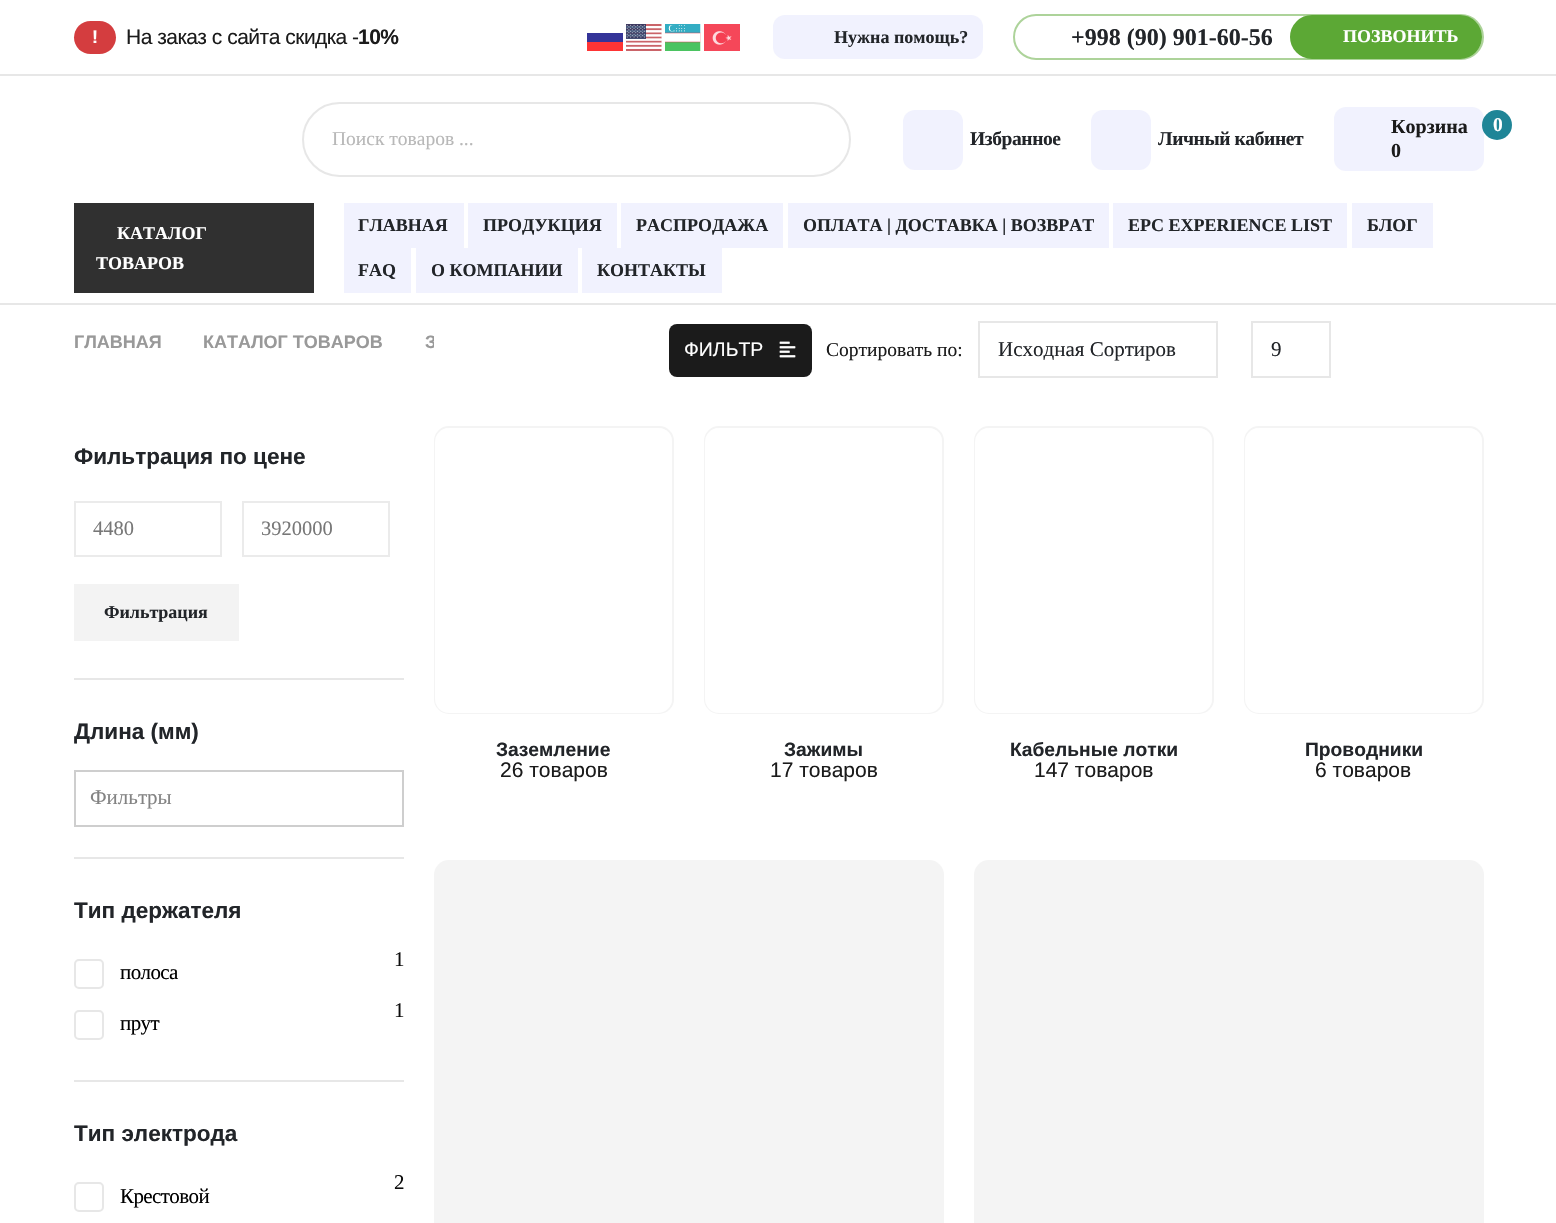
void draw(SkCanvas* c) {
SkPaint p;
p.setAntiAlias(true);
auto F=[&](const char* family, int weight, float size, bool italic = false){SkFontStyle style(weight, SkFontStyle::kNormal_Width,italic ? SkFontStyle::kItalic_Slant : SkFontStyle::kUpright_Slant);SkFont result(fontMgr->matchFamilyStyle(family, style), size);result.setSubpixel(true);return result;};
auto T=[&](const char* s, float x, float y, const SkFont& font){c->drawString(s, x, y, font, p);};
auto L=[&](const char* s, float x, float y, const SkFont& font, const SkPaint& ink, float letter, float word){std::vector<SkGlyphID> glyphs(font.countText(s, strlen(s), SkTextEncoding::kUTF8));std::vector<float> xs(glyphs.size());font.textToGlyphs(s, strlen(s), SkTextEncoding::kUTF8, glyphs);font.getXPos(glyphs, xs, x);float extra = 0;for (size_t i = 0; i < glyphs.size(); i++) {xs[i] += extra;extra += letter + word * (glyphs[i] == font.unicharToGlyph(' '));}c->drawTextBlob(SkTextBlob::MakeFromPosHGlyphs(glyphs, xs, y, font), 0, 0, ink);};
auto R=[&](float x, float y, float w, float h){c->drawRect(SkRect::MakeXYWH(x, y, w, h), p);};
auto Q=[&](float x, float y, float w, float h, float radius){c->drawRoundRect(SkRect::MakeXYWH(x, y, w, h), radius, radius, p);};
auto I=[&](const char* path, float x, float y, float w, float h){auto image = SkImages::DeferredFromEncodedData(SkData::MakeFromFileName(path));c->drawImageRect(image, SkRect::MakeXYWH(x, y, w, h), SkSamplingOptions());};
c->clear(0xffffffff);
p.setColor(0xffe7e7e7);
R(0,74,1556,2);
p.setColor(0xffd43d3f);
Q(74,21,42,33,16.5);
auto f1 = F("Liberation Sans",700,18);
p.setColor(0xffffffff);
T("!",92,43,f1);
auto f2 = F("Liberation Sans",400,21);
p.setColor(0xff1b1b1b);
L("На заказ с сайта скидка -",126,44,f2,p,-.5,0);
auto f3 = F("Liberation Sans",700,21);
L("10%",358,44,f3,p,-.5,0);
p.setColor(0xff343498);
R(587,33,36,9);
I("1.png",626,24,36,27);
I("2.png",665,24,36,27);
I("3.png",704,24,36,27);
p.setColor(0xfffe3434);
R(587,42,36,9);
p.setColor(0xfff1f2fe);
Q(773,15,210,44,12);
auto f4 = F("Liberation Serif",700,18);
p.setColor(0xff222529);
T("Нужна помощь?",834,43,f4);
p.setStroke(true);
p.setStrokeWidth(2);
p.setColor(0xffadd39a);
c->drawRoundRect(SkRect::MakeXYWH(1014,15,469,44),22,22,p);
auto f5 = F("Liberation Serif",700,24);
p.setStroke(false);
p.setColor(0xff222529);
T("+998 (90) 901-60-56",1071,45,f5);
p.setColor(0xff5ca835);
c->drawRoundRect(SkRect::MakeXYWH(1291,16,190,42),21,21,p);
p.setStroke(true);
c->drawRoundRect(SkRect::MakeXYWH(1291,16,190,42),21,21,p);
p.setStroke(false);
p.setColor(0xffffffff);
T("ПОЗВОНИТЬ",1343,42,f4);
p.setStroke(true);
p.setColor(0xffe7e7e7);
c->drawRoundRect(SkRect::MakeXYWH(303,103,547,73),36.5,36.5,p);
auto f6 = F("Liberation Serif",400,19.5);
p.setStroke(false);
p.setColor(0xffb8b8b8);
T("Поиск товаров ...",332,145,f6);
p.setColor(0xfff1f2fe);
Q(903,110,60,60,12);
auto f7 = F("Liberation Serif",700,19.5);
p.setColor(0xff222529);
L("Избранное",970,145,f7,p,-.4,0);
p.setColor(0xfff1f2fe);
Q(1091,110,60,60,12);
p.setColor(0xff222529);
L("Личный кабинет",1158,145,f7,p,-.4,0);
p.setColor(0xfff1f2fe);
Q(1334,107,150,64,12);
auto f8 = F("Liberation Serif",700,20);
p.setColor(0xff1b1b1b);
T("Корзина",1391,133,f8);
T("0",1391,157,f8);
p.setColor(0xff1f8597);
c->drawCircle(1497,125,15,p);
p.setColor(0xffffffff);
T("0",1493,131,f7);
p.setColor(0xff303030);
R(74,203,240,90);
p.setColor(0xffffffff);
T("КАТАЛОГ",117,239,f4);
T("ТОВАРОВ",96,269,f4);
p.setColor(0xfff1f2fe);
R(344,203,120,45);
p.setColor(0xff222529);
T("ГЛАВНАЯ",358,231,f4);
p.setColor(0xfff1f2fe);
R(468,203,149,45);
p.setColor(0xff222529);
T("ПРОДУКЦИЯ",483,231,f4);
p.setColor(0xfff1f2fe);
R(621,203,162,45);
p.setColor(0xff222529);
T("РАСПРОДАЖА",636,231,f4);
p.setColor(0xfff1f2fe);
R(788,203,321,45);
p.setColor(0xff222529);
T("ОПЛАТА | ДОСТАВКА | ВОЗВРАТ",803,231,f4);
p.setColor(0xfff1f2fe);
R(1113,203,234,45);
p.setColor(0xff222529);
T("EPC EXPERIENCE LIST",1128,231,f4);
p.setColor(0xfff1f2fe);
R(1352,203,81,45);
p.setColor(0xff222529);
T("БЛОГ",1367,231,f4);
p.setColor(0xfff1f2fe);
R(344,248,67,45);
p.setColor(0xff222529);
T("FAQ",358,276,f4);
p.setColor(0xfff1f2fe);
R(416,248,162,45);
p.setColor(0xff222529);
T("О КОМПАНИИ",431,276,f4);
p.setColor(0xfff1f2fe);
R(582,248,140,45);
p.setColor(0xff222529);
T("КОНТАКТЫ",597,276,f4);
p.setColor(0xffe7e7e7);
R(0,303,1556,2);
p.setColor(0xff999999);
T("ГЛАВНАЯ",74,348,f1);
T("КАТАЛОГ ТОВАРОВ",203,348,f1);
T("З",425,348,f1);
p.setColor(0xffe7e7e7);
R(74,678,330,2);
auto f9 = F("Liberation Sans",700,22.5);
p.setColor(0xff222529);
T("Фильтрация по цене",74,464,f9);
p.setStroke(true);
p.setColor(0xffebebeb);
c->drawRect(SkRect::MakeXYWH(75,502,146,54),p);
auto f10 = F("Liberation Serif",400,20.5);
p.setStroke(false);
p.setColor(0xff777777);
T("4480",93,535,f10);
p.setStroke(true);
p.setColor(0xffebebeb);
c->drawRect(SkRect::MakeXYWH(243,502,146,54),p);
p.setStroke(false);
p.setColor(0xff777777);
T("3920000",261,535,f10);
p.setColor(0xfff3f3f3);
R(74,584,165,57);
p.setColor(0xff222529);
T("Фильтрация",104,618,f4);
p.setColor(0xffe7e7e7);
R(74,857,330,2);
p.setColor(0xff222529);
T("Длина (мм)",74,739,f9);
p.setStroke(true);
p.setColor(0xffcecece);
c->drawRect(SkRect::MakeXYWH(75,771,328,55),p);
auto f11 = F("Liberation Serif",400,21);
p.setStroke(false);
p.setColor(0xff838383);
T("Фильтры",90,804,f11);
p.setColor(0xffe7e7e7);
R(74,1080,330,2);
p.setColor(0xff222529);
T("Тип держателя",74,918,f9);
p.setColor(0xff0d0d0d);
L("1",394,966,f11,p,-.6,0);
p.setStroke(true);
p.setColor(0xffe7e7e7);
c->drawRoundRect(SkRect::MakeXYWH(75,960,28,28),4,4,p);
p.setStroke(false);
p.setColor(0xff000000);
L("полоса",120,979,f11,p,-.6,0);
p.setColor(0xff0d0d0d);
L("1",394,1017,f11,p,-.6,0);
p.setStroke(true);
p.setColor(0xffe7e7e7);
c->drawRoundRect(SkRect::MakeXYWH(75,1011,28,28),4,4,p);
p.setStroke(false);
p.setColor(0xff000000);
L("прут",120,1030,f11,p,-.6,0);
p.setColor(0xff222529);
T("Тип электрода",74,1141,f9);
p.setColor(0xff0d0d0d);
L("2",394,1189,f11,p,-.6,0);
p.setStroke(true);
p.setColor(0xffe7e7e7);
c->drawRoundRect(SkRect::MakeXYWH(75,1183,28,28),4,4,p);
p.setStroke(false);
p.setColor(0xff000000);
L("Крестовой",120,1203,f11,p,-.6,0);
p.setColor(0xffffffff);
R(434,336,2,12);
p.setColor(0xff1b1b1b);
Q(669,324,143,53,8);
auto f12 = F("Liberation Sans",400,19.5);
p.setColor(0xffffffff);
T("ФИЛЬТР",684,356,f12);
I("4.png",779,341,17,17);
p.setColor(0xff1b1b1b);
T("Сортировать по:",826,356,f6);
p.setStroke(true);
p.setColor(0xffe7e7e7);
c->drawRect(SkRect::MakeXYWH(979,322,238,55),p);
p.setStroke(false);
p.setColor(0xff222529);
T("Исходная Сортиров",998,356,f11);
p.setStroke(true);
p.setColor(0xffe7e7e7);
c->drawRect(SkRect::MakeXYWH(1252,322,78,55),p);
p.setStroke(false);
p.setColor(0xff222529);
T("9",1271,356,f11);
p.setStroke(true);
p.setColor(0xfff4f4f4);
c->drawRoundRect(SkRect::MakeXYWH(435,427,238,286),14,14,p);
p.setStroke(false);
p.setColor(0xffffffff);
Q(435,428,237,285,14);
auto f13 = F("Liberation Sans",700,19.25);
p.setColor(0xff222529);
T("Заземление",496,756,f13);
p.setColor(0xff1b1b1b);
T("26 товаров",500,777,f2);
p.setStroke(true);
p.setColor(0xfff4f4f4);
c->drawRoundRect(SkRect::MakeXYWH(705,427,238,286),14,14,p);
p.setStroke(false);
p.setColor(0xffffffff);
Q(705,428,237,285,14);
p.setColor(0xff222529);
T("Зажимы",784,756,f13);
p.setColor(0xff1b1b1b);
T("17 товаров",770,777,f2);
p.setStroke(true);
p.setColor(0xfff4f4f4);
c->drawRoundRect(SkRect::MakeXYWH(975,427,238,286),14,14,p);
p.setStroke(false);
p.setColor(0xffffffff);
Q(975,428,237,285,14);
p.setColor(0xff222529);
T("Кабельные лотки",1010,756,f13);
p.setColor(0xff1b1b1b);
T("147 товаров",1034,777,f2);
p.setStroke(true);
p.setColor(0xfff4f4f4);
c->drawRoundRect(SkRect::MakeXYWH(1245,427,238,286),14,14,p);
p.setStroke(false);
p.setColor(0xffffffff);
Q(1245,428,237,285,14);
p.setColor(0xff222529);
T("Проводники",1305,756,f13);
p.setColor(0xff1b1b1b);
T("6 товаров",1315,777,f2);
p.setColor(0xfff4f4f4);
Q(434,860,510,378,15);
Q(974,860,510,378,15);
}
